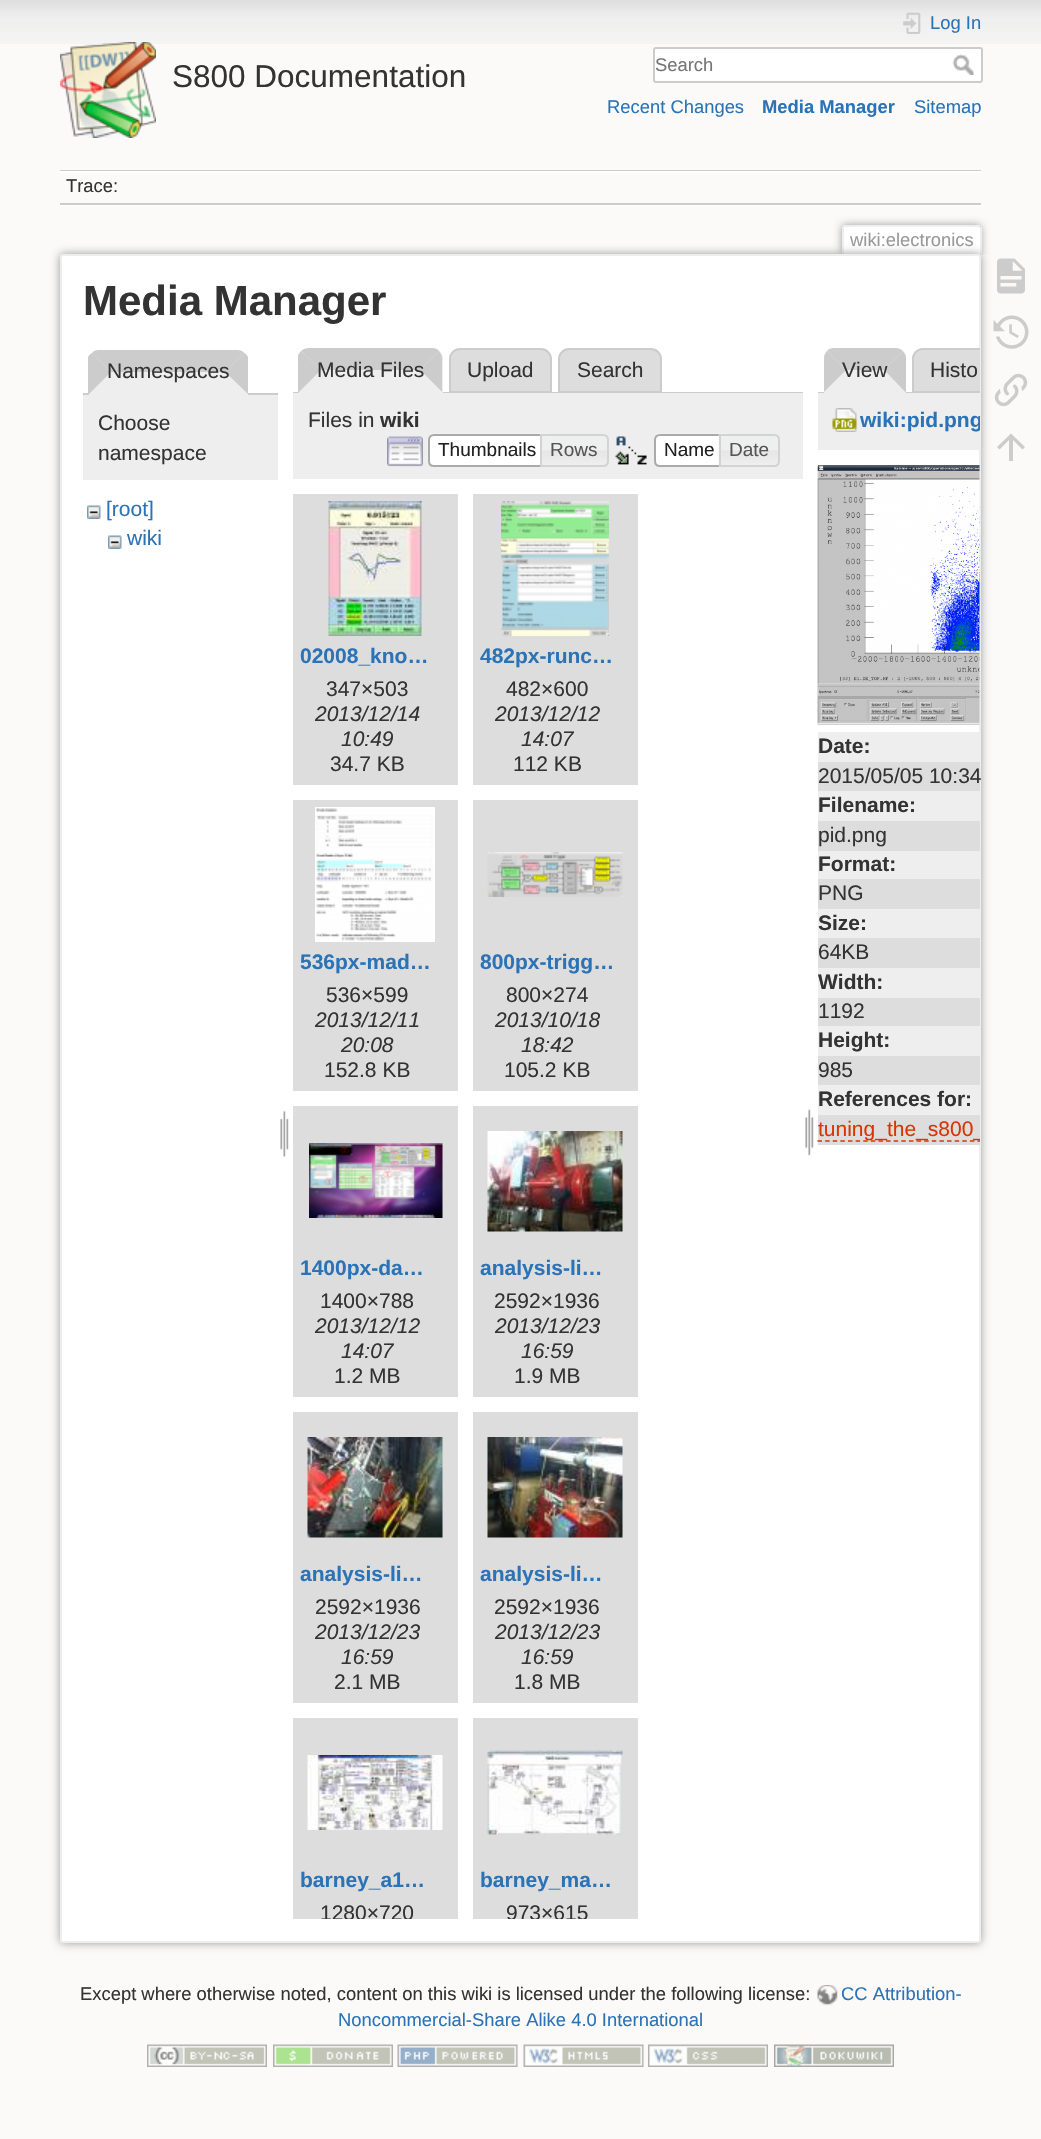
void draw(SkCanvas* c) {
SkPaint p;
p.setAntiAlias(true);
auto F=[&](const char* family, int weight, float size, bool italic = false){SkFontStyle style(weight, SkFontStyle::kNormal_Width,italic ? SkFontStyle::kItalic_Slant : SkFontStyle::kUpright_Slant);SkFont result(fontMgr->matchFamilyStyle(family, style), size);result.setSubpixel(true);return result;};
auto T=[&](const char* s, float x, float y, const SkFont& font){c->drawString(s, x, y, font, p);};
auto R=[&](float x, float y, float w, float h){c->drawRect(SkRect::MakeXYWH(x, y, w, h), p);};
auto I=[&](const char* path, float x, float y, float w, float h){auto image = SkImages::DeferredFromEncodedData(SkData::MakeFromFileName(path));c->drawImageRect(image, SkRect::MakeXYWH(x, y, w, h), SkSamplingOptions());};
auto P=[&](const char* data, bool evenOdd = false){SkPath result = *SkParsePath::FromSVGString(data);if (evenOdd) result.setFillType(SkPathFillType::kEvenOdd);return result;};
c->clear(0xfffbfaf9);
I("1.png",0,0,1041,44);
I("2.png",60,42,96,96);
auto f1 = F("Liberation Sans",400,31.5);
p.setColor(0xff333333);
T("S800 Documentation",172,87,f1);
I("3.png",903,12,18,22);
auto f2 = F("Liberation Sans",400,18.4);
p.setColor(0xff2b73b7);
T("Log In",930,29,f2);
p.setColor(0xffffffff);
c->drawRoundRect(SkRect::MakeXYWH(654,48,328,34),2,2,p);
p.setStroke(true);
p.setStrokeWidth(2);
p.setColor(0xffcccccc);
c->drawRoundRect(SkRect::MakeXYWH(654,48,328,34),2,2,p);
p.setStroke(false);
p.setColor(0xff757575);
T("Search",655,71,f2);
I("4.png",952,54,22,21);
p.setColor(0xff2b73b7);
T("Recent Changes",607,113,f2);
auto f3 = F("Liberation Sans",700,18.4);
T("Media Manager",762,113,f3);
T("Sitemap",914,113,f2);
p.setColor(0xffcccccc);
R(60,170,921,1);
p.setColor(0xffffffff);
R(60,205,921,1);
R(60,171,921,2);
p.setColor(0xffcccccc);
R(60,203,921,2);
p.setColor(0xff333333);
T("Trace:",66,192,f2);
c->save();
c->clipRect(SkRect::MakeXYWH(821,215,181,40));
p.setColor(0xff999999);
p.setMaskFilter(SkMaskFilter::MakeBlur(kNormal_SkBlurStyle, 4.5));
c->drawRoundRect(SkRect::MakeXYWH(842,225,139,30),3,3,p);
p.setMaskFilter(nullptr);
c->restore();
p.setColor(0xffffffff);
c->drawPath(P("M844.5 227h134c1 0 1.5 .5 1.5 1.5v26.5h-137v-26.5c0-1 .5-1.5 1.5-1.5z"),p);
p.setColor(0xffeeeeee);
R(843,225,137,2);
R(980,227,2,28);
R(842,227,2,28);
p.setColor(0xff999999);
T("wiki:electronics",850,246,f2);
p.setMaskFilter(SkMaskFilter::MakeBlur(kNormal_SkBlurStyle, 5));
c->drawRoundRect(SkRect::MakeXYWH(60,254,921,1689),3,3,p);
p.setMaskFilter(nullptr);
p.setColor(0xffffffff);
c->drawRoundRect(SkRect::MakeXYWH(61,255,919,1687),2,2,p);
p.setStroke(true);
p.setColor(0xffeeeeee);
c->drawRoundRect(SkRect::MakeXYWH(61,255,919,1687),2,2,p);
auto f4 = F("Liberation Sans",700,42);
p.setStroke(false);
p.setColor(0xff333333);
T("Media Manager",83,315,f4);
p.setColor(0xffcccccc);
R(83,393,195,2);
p.setColor(0xffeeeeee);
c->drawPath(P("M100 350h137c6 0 11 5 11 11v34h-159v-34c0-6 5-11 11-11z"),p);
p.setColor(0xffcccccc);
c->drawPath(P("M99 350c-3 0-6 1-7 3l19 19h114l19-19c-1-2-4-3-7-3z"),p);
c->drawPath(P("M248 394l-23-22l19-19c2 1 3 2 4 4z"),p);
p.setColor(0xffeeeeee);
c->drawPath(P("M247 394l-22-22h-114l-22 22z"),p);
p.setColor(0xffcccccc);
c->drawPath(P("M88 357c1-2 2-3 4-4l19 19l-22 22h-1z"),p);
auto f5 = F("Liberation Sans",400,21);
p.setColor(0xff333333);
T("Namespaces",107,378,f5);
p.setColor(0xffeeeeee);
R(83,395,195,85);
p.setColor(0xff333333);
T("Choose",98,430,f5);
T("namespace",98,460,f5);
I("5.png",87,505,14,14);
p.setColor(0xff2b73b7);
T("[root]",106,516,f5);
I("5.png",108,535,14,14);
T("wiki",127,545,f5);
I("6.png",280,1110,9,47);
p.setColor(0xffdddddd);
c->drawPath(P("M460 349h81c5.5 0 10 4.5 10 10v33h-101v-33c0-5.5 4.5-10 10-10z"),p);
p.setStroke(true);
p.setColor(0xffcccccc);
c->drawPath(P("M460 349h81c5.5 0 10 4.5 10 10v33h-101v-33c0-5.5 4.5-10 10-10z"),p);
p.setStroke(false);
p.setColor(0xffdddddd);
c->drawPath(P("M569 349h82c5.5 0 10 4.5 10 10v33h-102v-33c0-5.5 4.5-10 10-10z"),p);
p.setStroke(true);
p.setColor(0xffcccccc);
c->drawPath(P("M569 349h82c5.5 0 10 4.5 10 10v33h-102v-33c0-5.5 4.5-10 10-10z"),p);
p.setStroke(false);
R(293,392,510,1);
p.setColor(0xffeeeeee);
c->drawPath(P("M310 348h122c6 0 11 5 11 11v34h-144v-34c0-6 5-11 11-11z"),p);
p.setColor(0xffcccccc);
c->drawPath(P("M309 348h123c3 0 6 1 7 3l-19 19h-99l-20-19c2-2 5-3 8-3z"),p);
c->drawPath(P("M439 351l-19 19l22 22v-34c0-2-1-5-3-7z"),p);
p.setColor(0xffeeeeee);
c->drawPath(P("M442 392l-22-22h-99l-23 23h144z"),p);
p.setColor(0xffcccccc);
c->drawPath(P("M298 393l23-23l-20-19l-3 4z"),p);
p.setColor(0xff333333);
T("Media Files",317,377,f5);
T("Upload",467,377,f5);
T("Search",577,377,f5);
p.setColor(0xffeeeeee);
R(293,393,510,86);
p.setColor(0xff333333);
T("Files in",308,427,f5);
auto f6 = F("Liberation Sans",700,21);
T("wiki",380,427,f6);
I("7.png",387,436,36,31);
p.setColor(0xffffffff);
c->drawPath(P("M434 434h114v33h-114c-3.5 0-6-2.5-6-6v-21c0-3.5 2.5-6 6-6z"),p);
I("8.png",427,433,120,31);
p.setStroke(true);
p.setColor(0xffaaaaaa);
c->drawPath(P("M434 435h113v31h-113c-3 0-5-2-5-5v-21c0-3 2-5 5-5z"),p);
auto f7 = F("Liberation Sans",400,19);
p.setStroke(false);
p.setColor(0xff212121);
T("Thumbnails",438,456,f7);
I("9.png",542,434,67,32);
p.setStroke(true);
p.setColor(0xffd3d3d3);
c->drawPath(P("M541 435h62c3 0 5 2 5 5v21c0 3-2 5-5 5h-62z"),p);
p.setStroke(false);
p.setColor(0xff555555);
T("Rows",550,456,f7);
I("10.png",614,436,33,29);
p.setColor(0xffffffff);
c->drawPath(P("M660 434h66v33h-66c-3.5 0-6-2.5-6-6v-21c0-3.5 2.5-6 6-6z"),p);
I("11.png",654,433,72,5);
p.setStroke(true);
p.setColor(0xffaaaaaa);
c->drawPath(P("M660 435h65v31h-65c-3 0-5-2-5-5v-21c0-3 2-5 5-5z"),p);
p.setStroke(false);
p.setColor(0xff212121);
T("Name",664,456,f7);
I("12.png",718,434,62,33);
p.setStroke(true);
p.setColor(0xffd3d3d3);
c->drawPath(P("M720 435h54c3 0 5 2 5 5v21c0 3-2 5-5 5h-54z"),p);
p.setStroke(false);
p.setColor(0xff555555);
T("Date",729,456,f7);
p.setColor(0xffdddddd);
R(293,494,165,291);
I("13.png",328,501,94,135);
p.setColor(0xff2b73b7);
T("02008_kno…",300,663,f6);
p.setColor(0xff333333);
T("347×503",326,696,f5);
auto f8 = F("Liberation Sans",400,21,true);
T("2013/12/14",315,721,f8);
T("10:49",341,746,f8);
T("34.7 KB",330,771,f5);
p.setColor(0xffdddddd);
R(473,494,165,291);
I("14.png",501,501,108,135);
p.setColor(0xff2b73b7);
T("482px-runc…",480,663,f6);
p.setColor(0xff333333);
T("482×600",506,696,f5);
T("2013/12/12",495,721,f8);
T("14:07",521,746,f8);
T("112 KB",513,771,f5);
p.setColor(0xffdddddd);
R(293,800,165,291);
I("15.png",315,807,120,135);
p.setColor(0xff2b73b7);
T("536px-mad…",300,969,f6);
p.setColor(0xff333333);
T("536×599",326,1002,f5);
T("2013/12/11",315,1027,f8);
T("20:08",341,1052,f8);
T("152.8 KB",324,1077,f5);
p.setColor(0xffdddddd);
R(473,800,165,291);
I("16.png",487,852,136,45);
p.setColor(0xff2b73b7);
T("800px-trigg…",480,969,f6);
p.setColor(0xff333333);
T("800×274",506,1002,f5);
T("2013/10/18",495,1027,f8);
T("18:42",521,1052,f8);
T("105.2 KB",504,1077,f5);
p.setColor(0xffdddddd);
R(293,1106,165,291);
I("17.png",309,1143,134,75);
p.setColor(0xff2b73b7);
T("1400px-da…",300,1275,f6);
p.setColor(0xff333333);
T("1400×788",320,1308,f5);
T("2013/12/12",315,1333,f8);
T("14:07",341,1358,f8);
T("1.2 MB",334,1383,f5);
p.setColor(0xffdddddd);
R(473,1106,165,291);
I("18.png",487,1131,136,101);
p.setColor(0xff2b73b7);
T("analysis-li…",480,1275,f6);
p.setColor(0xff333333);
T("2592×1936",494,1308,f5);
T("2013/12/23",495,1333,f8);
T("16:59",521,1358,f8);
T("1.9 MB",514,1383,f5);
p.setColor(0xffdddddd);
R(293,1412,165,291);
I("19.png",307,1437,136,101);
p.setColor(0xff2b73b7);
T("analysis-li…",300,1581,f6);
p.setColor(0xff333333);
T("2592×1936",315,1614,f5);
T("2013/12/23",315,1639,f8);
T("16:59",341,1664,f8);
T("2.1 MB",334,1689,f5);
p.setColor(0xffdddddd);
R(473,1412,165,291);
I("20.png",487,1437,136,101);
p.setColor(0xff2b73b7);
T("analysis-li…",480,1581,f6);
p.setColor(0xff333333);
T("2592×1936",494,1614,f5);
T("2013/12/23",495,1639,f8);
T("16:59",521,1664,f8);
T("1.8 MB",514,1689,f5);
p.setColor(0xffdddddd);
R(293,1718,165,201);
I("21.png",307,1755,136,75);
p.setColor(0xff2b73b7);
T("barney_a1…",300,1887,f6);
c->save();
c->clipRect(SkRect::MakeXYWH(300,1901,135,18));
p.setColor(0xff333333);
T("1280×720",320,1920,f5);
c->restore();
p.setColor(0xffdddddd);
R(473,1718,165,201);
I("22.png",487,1750,136,85);
p.setColor(0xff2b73b7);
T("barney_ma…",480,1887,f6);
c->save();
c->clipRect(SkRect::MakeXYWH(480,1901,135,18));
p.setColor(0xff333333);
T("973×615",506,1920,f5);
c->restore();
I("23.png",805,1108,9,48);
p.setColor(0xffcccccc);
R(818,392,94,1);
p.setColor(0xffeeeeee);
c->drawPath(P("M835 348h60c6 0 11 5 11 11v34h-82v-34c0-6 5-11 11-11z"),p);
p.setColor(0xffcccccc);
c->drawPath(P("M834 348h62c2 0 5 1 7 3l-19 19h-38l-19-19c1-2 4-3 7-3z"),p);
c->drawPath(P("M903 351l-19 19l22 23v-35c0-2-1-5-3-7z"),p);
p.setColor(0xffeeeeee);
c->drawPath(P("M906 393h-82l22-23h38z"),p);
p.setColor(0xffcccccc);
c->drawPath(P("M827 351c-2 2-3 5-3 7v34l22-22z"),p);
p.setColor(0xff333333);
T("View",842,377,f5);
p.setColor(0xffdddddd);
c->drawPath(P("M923 348h57v45h-68v-34c0-6 5-11 11-11z"),p);
p.setColor(0xffcccccc);
c->drawPath(P("M923 348c-6 0-11 5-11 11v34h68v-2h-66v-32c0-5 4-9 9-9h57v-2z"),p);
p.setColor(0xff333333);
T("Histo",930,377,f5);
p.setColor(0xffeeeeee);
R(818,393,161,57);
I("24.png",832,408,25,24);
c->save();
c->clipPath(P("M63.5 255h915c1 0 1.5 .5 1.5 1.5v1683c0 1-.5 1.5-1.5 1.5h-915c-1 0-1.5-.5-1.5-1.5v-1683c0-1 .5-1.5 1.5-1.5z"),true);
p.setColor(0xff2b73b7);
T("wiki:pid.png",860,427,f6);
c->restore();
I("25.png",817,465,163,260);
p.setColor(0xffeeeeee);
R(818,732,161,30);
p.setColor(0xff333333);
T("Date:",818,753,f6);
p.setColor(0xffdddddd);
R(818,762,162,29);
p.setColor(0xff333333);
T("2015/05/05 10:34",818,783,f5);
p.setColor(0xffeeeeee);
R(818,791,161,30);
p.setColor(0xff333333);
T("Filename:",818,812,f6);
p.setColor(0xffdddddd);
R(818,821,162,30);
p.setColor(0xff333333);
T("pid.png",818,842,f5);
p.setColor(0xffeeeeee);
R(818,851,161,28);
p.setColor(0xff333333);
T("Format:",818,871,f6);
p.setColor(0xffdddddd);
R(818,879,162,30);
p.setColor(0xff333333);
T("PNG",818,900,f5);
p.setColor(0xffeeeeee);
R(818,909,161,29);
p.setColor(0xff333333);
T("Size:",818,930,f6);
p.setColor(0xffdddddd);
R(818,938,162,30);
p.setColor(0xff333333);
T("64KB",818,959,f5);
p.setColor(0xffeeeeee);
R(818,968,161,30);
p.setColor(0xff333333);
T("Width:",818,989,f6);
p.setColor(0xffdddddd);
R(818,998,162,28);
p.setColor(0xff333333);
T("1192",818,1018,f5);
p.setColor(0xffeeeeee);
R(818,1026,161,30);
p.setColor(0xff333333);
T("Height:",818,1047,f6);
p.setColor(0xffdddddd);
R(818,1056,162,29);
p.setColor(0xff333333);
T("985",818,1077,f5);
p.setColor(0xffeeeeee);
R(818,1085,161,30);
p.setColor(0xff333333);
T("References for:",818,1106,f6);
p.setColor(0xffdddddd);
R(818,1115,162,30);
c->save();
c->clipPath(P("M63.5 255h915c1 0 1.5 .5 1.5 1.5v1683c0 1-.5 1.5-1.5 1.5h-915c-1 0-1.5-.5-1.5-1.5v-1683c0-1 .5-1.5 1.5-1.5z"),true);
p.setStroke(true);
p.setStrokeWidth(1.5);
p.setColor(0xffdd3300);
p.setPathEffect(SkDashPathEffect::Make({{4.5f,3.12f}}, 0));
c->drawPath(P("M817.5 1141h195"),p);
p.setPathEffect(nullptr);
p.setStroke(false);
T("tuning_the_s800_",818,1136,f5);
c->restore();
I("26.png",997,258,28,36);
I("27.png",993,315,36,34);
I("28.png",994,373,34,34);
p.setColor(0xffcccccc);
c->drawPath(P("M1013 461h-4v-21l-9.5 9.5l-2.5-2.5l14-13.5l14 13.5l-2.5 2.5l-9.5-9.5z"),p);
p.setColor(0xff333333);
T("Except where otherwise noted, content on this wiki is licensed under the following license:",80,2000,f2);
I("29.png",817,1985,21,21);
p.setColor(0xff2b73b7);
T("CC Attribution-",841,2000,f2);
T("Noncommercial-Share Alike 4.0 International",338,2026,f2);
I("30.png",147,2044,120,23);
I("31.png",273,2044,120,23);
I("32.png",397,2044,121,23);
I("33.png",523,2044,121,23);
I("34.png",648,2044,120,23);
I("35.png",774,2044,120,23);
}
